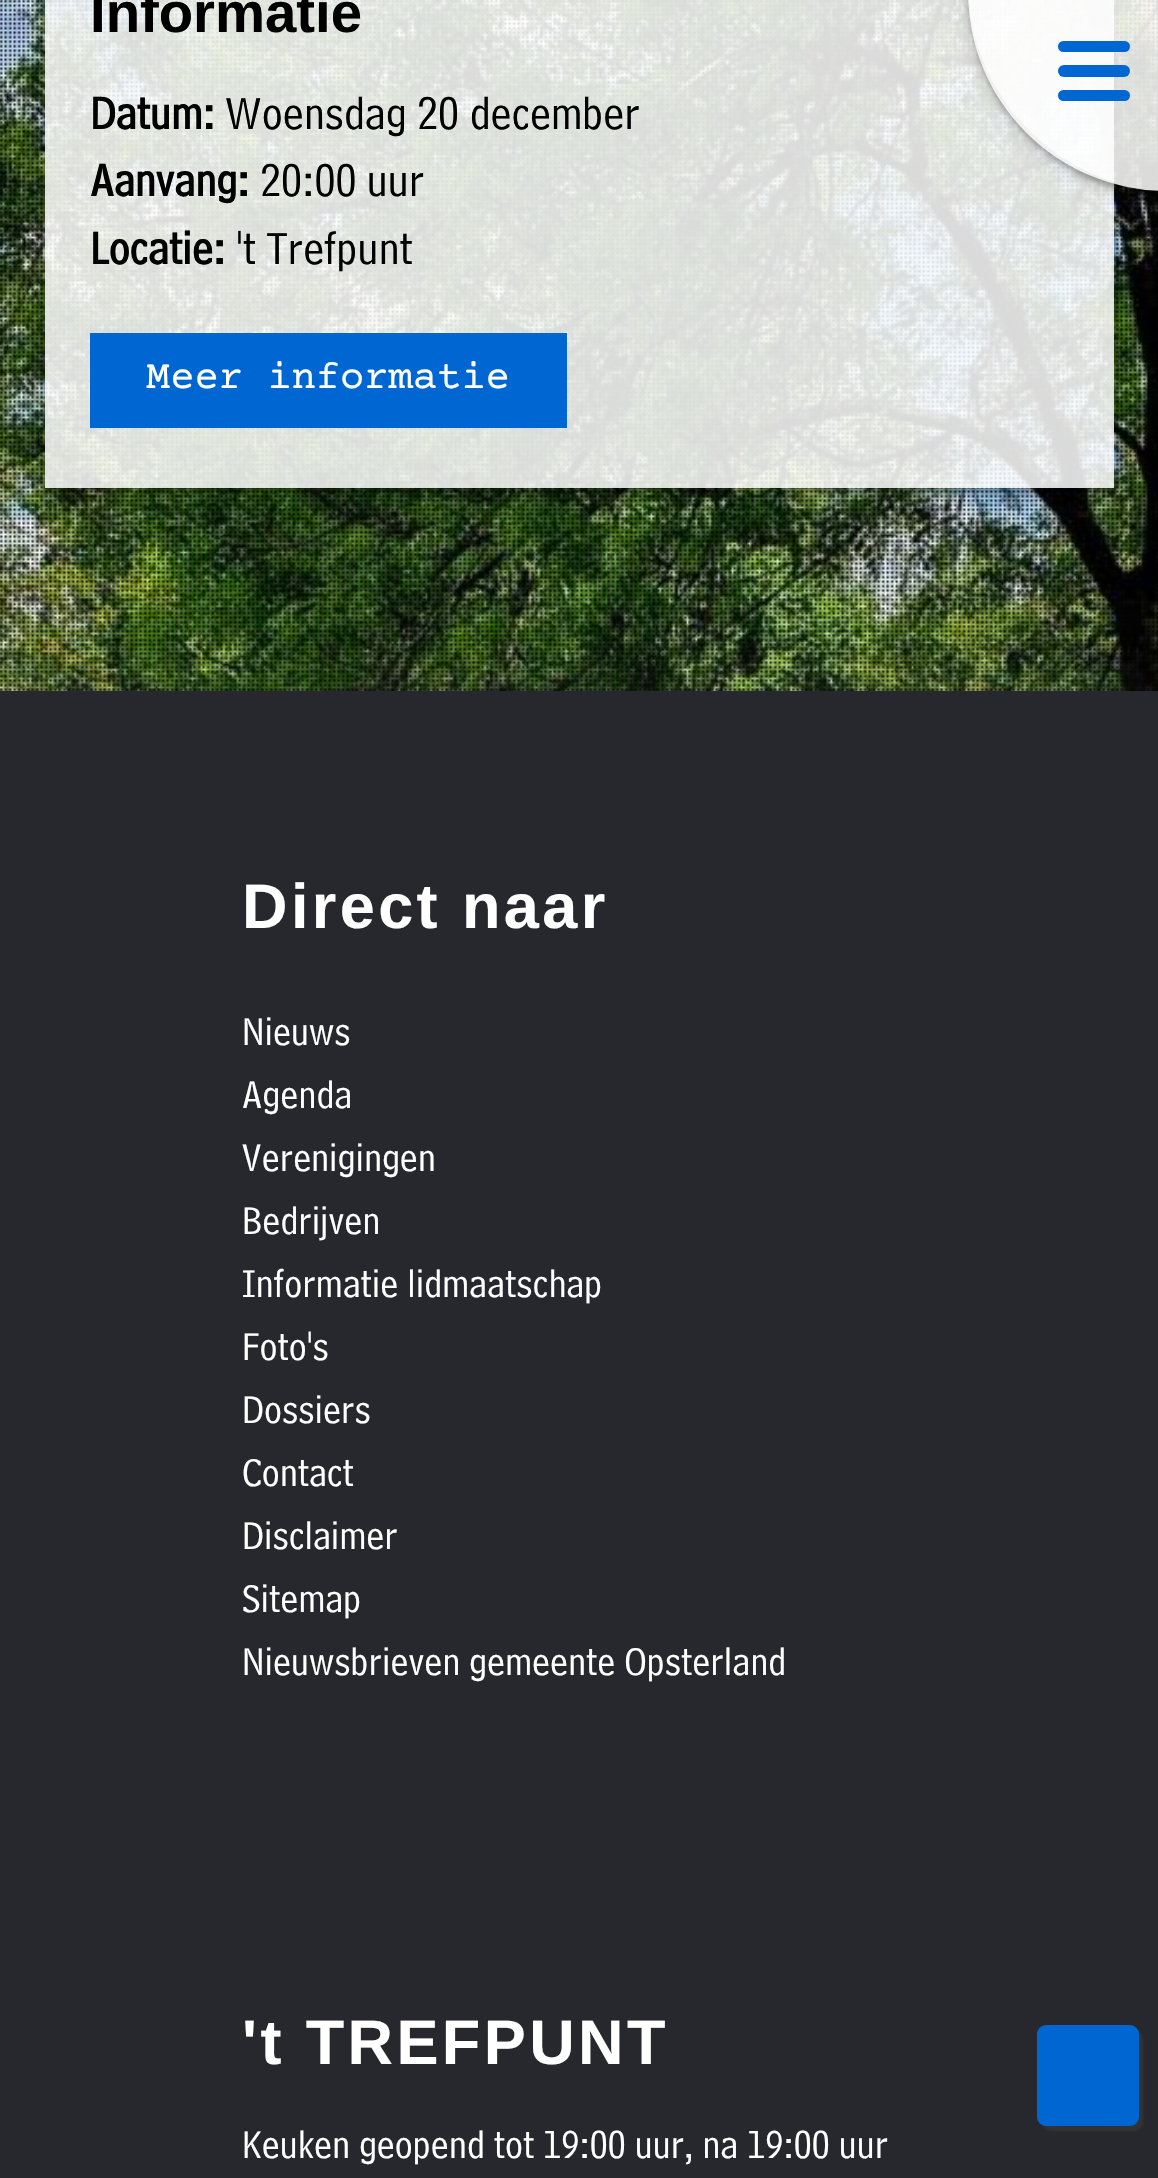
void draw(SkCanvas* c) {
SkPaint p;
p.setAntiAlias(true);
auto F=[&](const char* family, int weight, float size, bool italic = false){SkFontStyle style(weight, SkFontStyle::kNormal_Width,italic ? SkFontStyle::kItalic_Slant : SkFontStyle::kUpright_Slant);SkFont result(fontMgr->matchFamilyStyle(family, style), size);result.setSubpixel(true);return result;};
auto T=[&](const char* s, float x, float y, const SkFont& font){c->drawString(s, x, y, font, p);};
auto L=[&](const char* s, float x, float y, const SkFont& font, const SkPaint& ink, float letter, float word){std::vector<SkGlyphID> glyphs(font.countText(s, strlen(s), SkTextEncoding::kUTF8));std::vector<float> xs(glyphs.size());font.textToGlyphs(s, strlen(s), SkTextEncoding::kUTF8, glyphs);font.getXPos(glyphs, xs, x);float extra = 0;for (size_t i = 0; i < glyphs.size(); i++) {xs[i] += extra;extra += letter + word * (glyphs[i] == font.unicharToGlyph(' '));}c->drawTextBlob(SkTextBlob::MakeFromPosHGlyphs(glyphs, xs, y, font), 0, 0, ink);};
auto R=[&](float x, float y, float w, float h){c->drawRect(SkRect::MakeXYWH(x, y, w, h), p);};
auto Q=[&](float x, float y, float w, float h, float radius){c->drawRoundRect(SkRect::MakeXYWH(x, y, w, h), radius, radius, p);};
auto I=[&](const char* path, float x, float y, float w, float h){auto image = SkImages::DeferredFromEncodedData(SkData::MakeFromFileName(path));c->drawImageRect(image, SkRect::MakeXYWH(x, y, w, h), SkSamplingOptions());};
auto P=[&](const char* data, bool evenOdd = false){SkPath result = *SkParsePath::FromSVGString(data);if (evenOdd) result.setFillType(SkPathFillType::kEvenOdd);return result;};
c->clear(0xffffffff);
I("1.png",0,0,1158,691);
I("2.png",0,0,1158,691);
c->save();
c->clipPath(P("M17 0h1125v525h-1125zm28-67h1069v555h-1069z",true),true);
p.setColor(0x30000000);
p.setMaskFilter(SkMaskFilter::MakeBlur(kNormal_SkBlurStyle, 9));
c->drawRect(SkRect::MakeXYWH(45,-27,1069,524),p);
p.setMaskFilter(nullptr);
c->restore();
c->save();
c->clipPath(P("M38 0h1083v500h-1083zm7-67h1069v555h-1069z",true),true);
p.setColor(0x33000000);
p.setMaskFilter(SkMaskFilter::MakeBlur(kNormal_SkBlurStyle, 2));
c->drawRect(SkRect::MakeXYWH(45,-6,1069,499),p);
p.setMaskFilter(nullptr);
c->restore();
p.setColor(0xd9ffffff);
R(45,0,1069,488);
c->save();
c->clipPath(P("M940 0h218v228h-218zm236-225c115 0 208 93 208 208c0 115-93 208-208 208c-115 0-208-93-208-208c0-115 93-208 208-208z",true),true);
p.setColor(0x30000000);
p.setMaskFilter(SkMaskFilter::MakeBlur(kNormal_SkBlurStyle, 9));
c->drawRoundRect(SkRect::MakeXYWH(968,-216,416,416),208,208,p);
p.setMaskFilter(nullptr);
c->restore();
c->save();
c->clipPath(P("M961 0h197v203h-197zm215-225c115 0 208 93 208 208c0 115-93 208-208 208c-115 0-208-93-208-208c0-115 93-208 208-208z",true),true);
p.setColor(0x33000000);
p.setMaskFilter(SkMaskFilter::MakeBlur(kNormal_SkBlurStyle, 2));
c->drawRoundRect(SkRect::MakeXYWH(968,-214,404,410),208,208,p);
p.setMaskFilter(nullptr);
c->restore();
p.setColor(0xd9ffffff);
Q(968,-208,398,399,208);
p.setColor(0xff0066d2);
Q(1058,41,72,11,5.5);
Q(1058,65,72,12,6);
Q(1058,90,72,11,5.5);
auto f1 = F("Liberation Sans",700,56.25);
p.setColor(0xff000000);
T("Informatie",90,32,f1);
auto f2 = F("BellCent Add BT",700,47.25);
T("Datum:",90,129,f2);
auto f3 = F("BellCent Add BT",400,47.25);
T("Woensdag 20 december",225,129,f3);
T("Aanvang:",90,196,f2);
T("20:00 uur",260,196,f3);
T("Locatie:",90,264,f2);
T("'t Trefpunt",236,264,f3);
p.setColor(0xff0066d2);
R(90,333,477,95);
auto f4 = F("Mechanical",400,40.5);
p.setColor(0xffffffff);
T("Meer informatie",146,388,f4);
p.setColor(0x30333333);
p.setMaskFilter(SkMaskFilter::MakeBlur(kNormal_SkBlurStyle, 22.5));
c->drawRect(SkRect::MakeXYWH(11,680,1137,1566),p);
p.setMaskFilter(nullptr);
p.setColor(0xff27272e);
R(0,691,1158,1487);
auto f5 = F("Liberation Sans",700,63);
p.setColor(0xffffffff);
L("Direct naar",242,928,f5,p,3.4,0);
auto f6 = F("BellCent Add BT",400,40.5);
T("Nieuws",242,1045,f6);
T("Agenda",242,1108,f6);
T("Verenigingen",242,1171,f6);
T("Bedrijven",242,1234,f6);
T("Informatie lidmaatschap",242,1297,f6);
T("Foto's",242,1360,f6);
T("Dossiers",242,1423,f6);
T("Contact",242,1486,f6);
T("Disclaimer",242,1549,f6);
T("Sitemap",242,1612,f6);
T("Nieuwsbrieven gemeente Opsterland",242,1675,f6);
L("'t TREFPUNT",242,2064,f5,p,3.4,0);
T("Keuken geopend tot 19:00 uur, na 19:00 uur",242,2158,f6);
p.setColor(0xff333333);
p.setMaskFilter(SkMaskFilter::MakeBlur(kNormal_SkBlurStyle, 1));
c->drawRoundRect(SkRect::MakeXYWH(1042,2030,101,101),9,9,p);
p.setMaskFilter(nullptr);
p.setColor(0xff0066d2);
Q(1037,2025,102,101,9);
}
